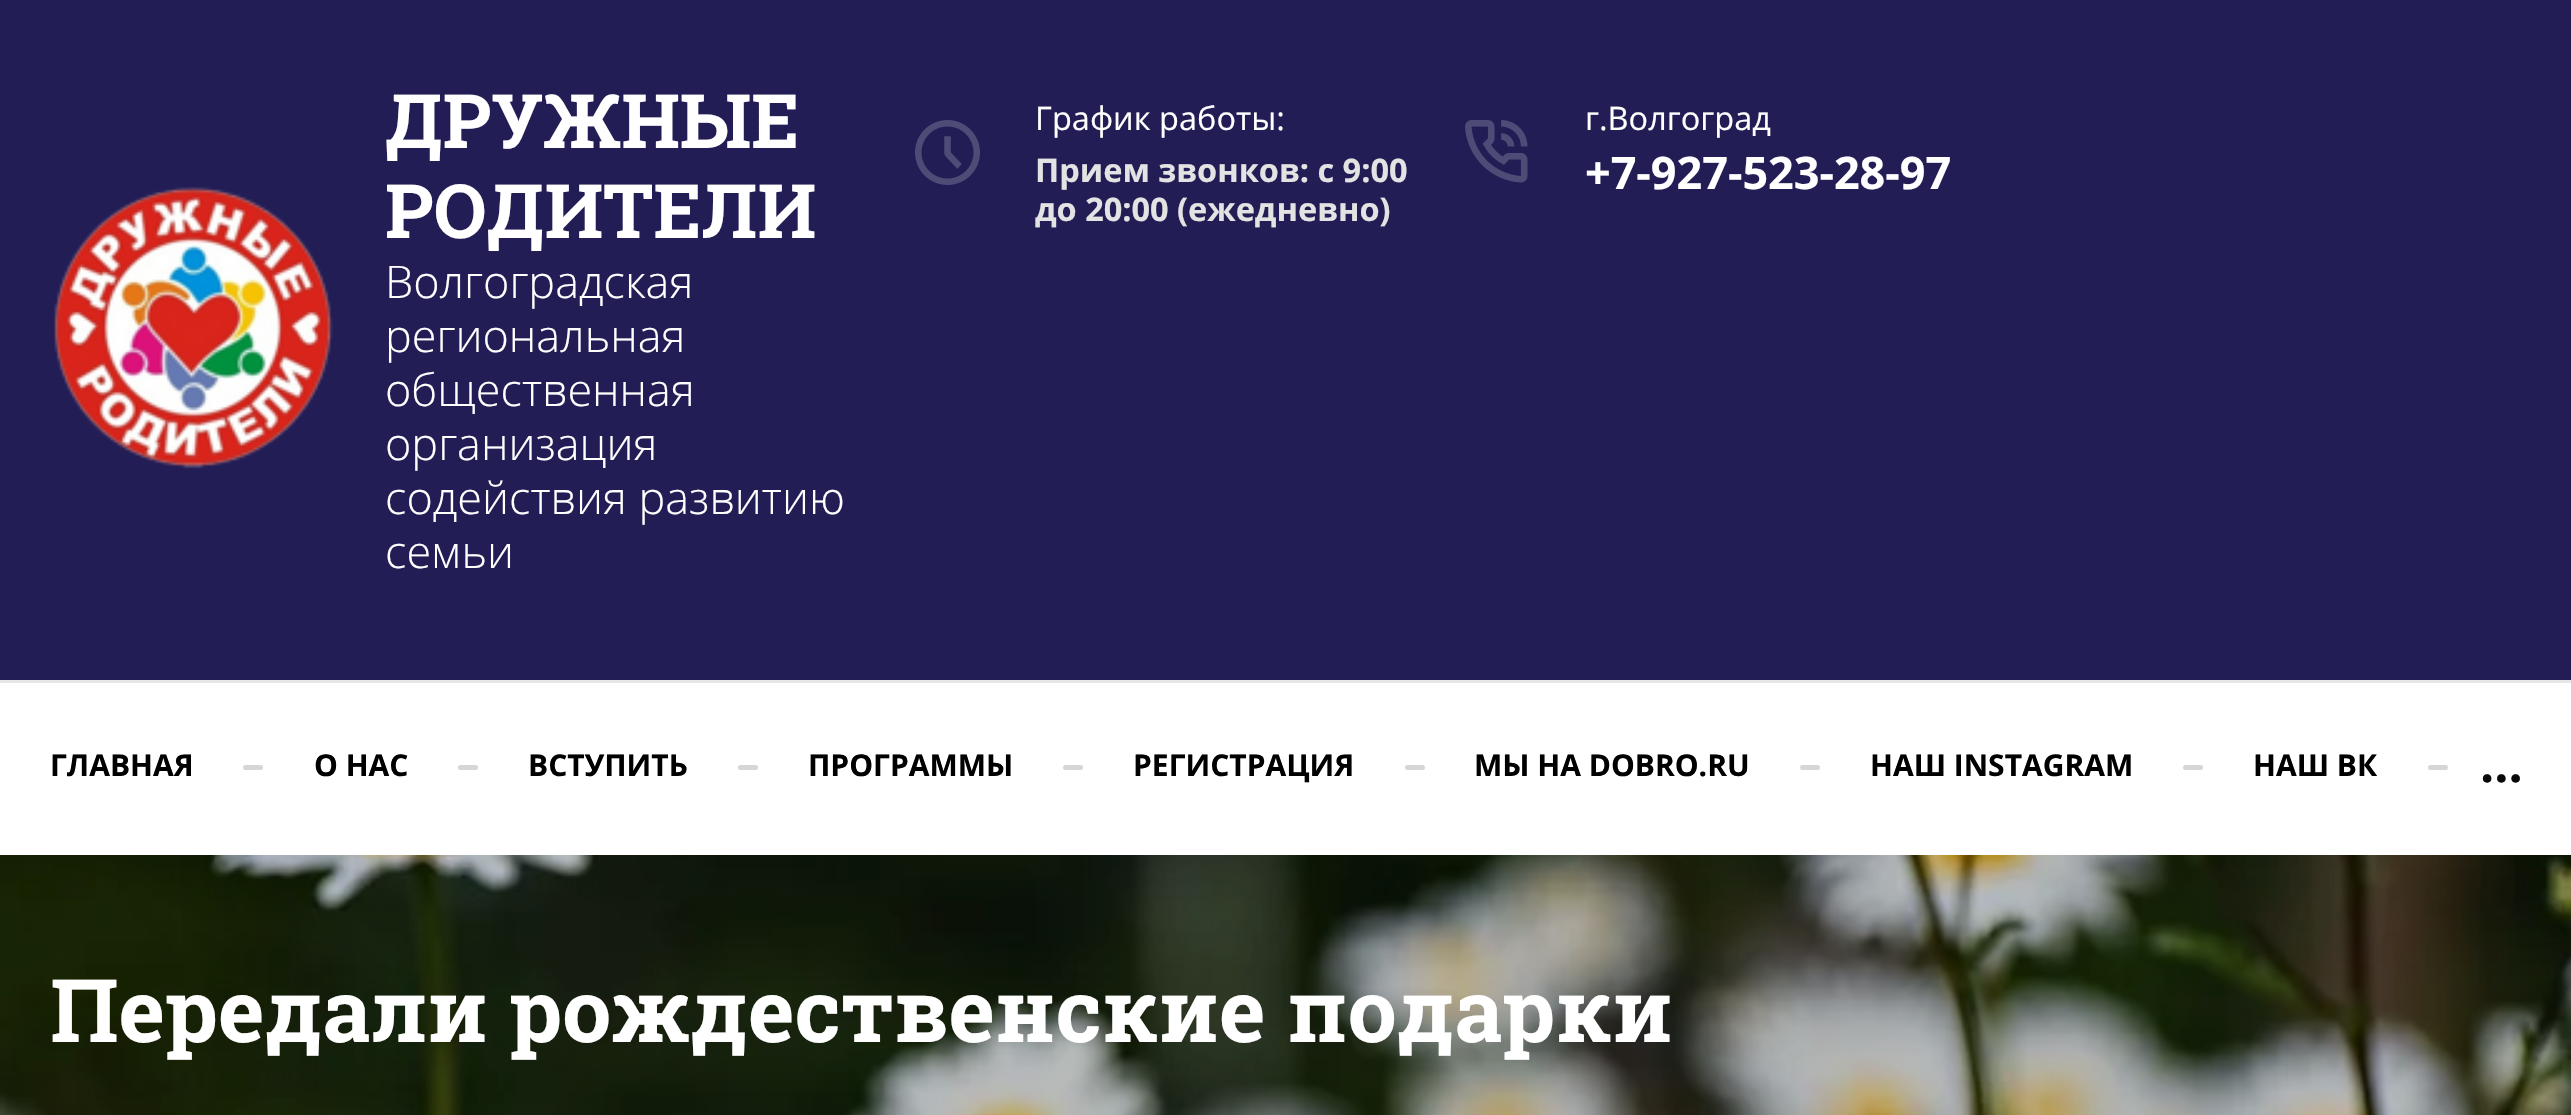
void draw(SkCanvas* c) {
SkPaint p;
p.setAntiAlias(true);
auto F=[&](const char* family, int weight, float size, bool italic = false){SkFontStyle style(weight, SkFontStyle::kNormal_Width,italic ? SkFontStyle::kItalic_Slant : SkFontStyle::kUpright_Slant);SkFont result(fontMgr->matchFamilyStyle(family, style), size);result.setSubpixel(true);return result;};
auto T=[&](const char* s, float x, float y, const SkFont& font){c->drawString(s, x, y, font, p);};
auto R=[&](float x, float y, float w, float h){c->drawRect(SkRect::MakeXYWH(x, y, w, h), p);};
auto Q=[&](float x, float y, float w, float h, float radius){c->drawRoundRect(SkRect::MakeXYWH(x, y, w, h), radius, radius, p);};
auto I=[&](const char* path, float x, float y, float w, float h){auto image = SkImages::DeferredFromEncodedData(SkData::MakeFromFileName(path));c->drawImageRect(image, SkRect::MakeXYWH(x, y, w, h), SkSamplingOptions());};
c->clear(0xffffffff);
p.setColor(0xff231d55);
R(0,0,2571,680);
I("1.png",54,187,279,282);
auto f1 = F("Roboto Slab",700,75);
p.setColor(0xffffffff);
T("ДРУЖНЫЕ",385,148,f1);
T("РОДИТЕЛИ",385,238,f1);
auto f2 = F("Open Sans",300,45);
T("Волгоградская",385,298,f2);
T("региональная",385,352,f2);
T("общественная",385,406,f2);
T("организация",385,460,f2);
T("содействия развитию",385,514,f2);
T("семьи",385,568,f2);
I("2.png",915,120,65,65);
auto f3 = F("Open Sans",400,32.5);
T("График работы:",1035,130,f3);
auto f4 = F("Open Sans",700,32.5);
p.setColor(0xffe3e3e3);
T("Прием звонков: с 9:00",1035,182,f4);
T("до 20:00 (ежедневно)",1035,221,f4);
I("3.png",1465,120,63,63);
p.setColor(0xffffffff);
T("г.Волгоград",1585,130,f3);
auto f5 = F("Open Sans",700,45);
T("+7-927-523-28-97",1585,189,f5);
p.setColor(0xffe6e6e6);
R(0,680,2571,3);
auto f6 = F("Open Sans",700,30);
p.setColor(0xff000000);
T("ГЛАВНАЯ",50,776,f6);
p.setColor(0xffd6d6d6);
Q(243,765,20,5,2.5);
p.setColor(0xff000000);
T("О НАС",314,776,f6);
p.setColor(0xffd6d6d6);
Q(458,765,20,5,2.5);
p.setColor(0xff000000);
T("ВСТУПИТЬ",528,776,f6);
p.setColor(0xffd6d6d6);
Q(738,765,20,5,2.5);
p.setColor(0xff000000);
T("ПРОГРАММЫ",808,776,f6);
p.setColor(0xffd6d6d6);
Q(1063,765,20,5,2.5);
p.setColor(0xff000000);
T("РЕГИСТРАЦИЯ",1133,776,f6);
p.setColor(0xffd6d6d6);
Q(1405,765,20,5,2.5);
p.setColor(0xff000000);
T("МЫ НА DOBRO.RU",1474,776,f6);
p.setColor(0xffd6d6d6);
Q(1800,765,20,5,2.5);
p.setColor(0xff000000);
T("НАШ INSTAGRAM",1870,776,f6);
p.setColor(0xffd6d6d6);
Q(2183,765,20,5,2.5);
p.setColor(0xff000000);
T("НАШ ВК",2253,776,f6);
p.setColor(0xffd6d6d6);
Q(2428,765,20,5,2.5);
auto f7 = F("Open Sans",700,50);
p.setColor(0xff080808);
T("...",2480,782,f7);
I("4.png",0,855,2571,260);
auto f8 = F("Roboto Slab",700,87.5);
p.setColor(0xffffffff);
T("Передали рождественские подарки",50,1042,f8);
}
